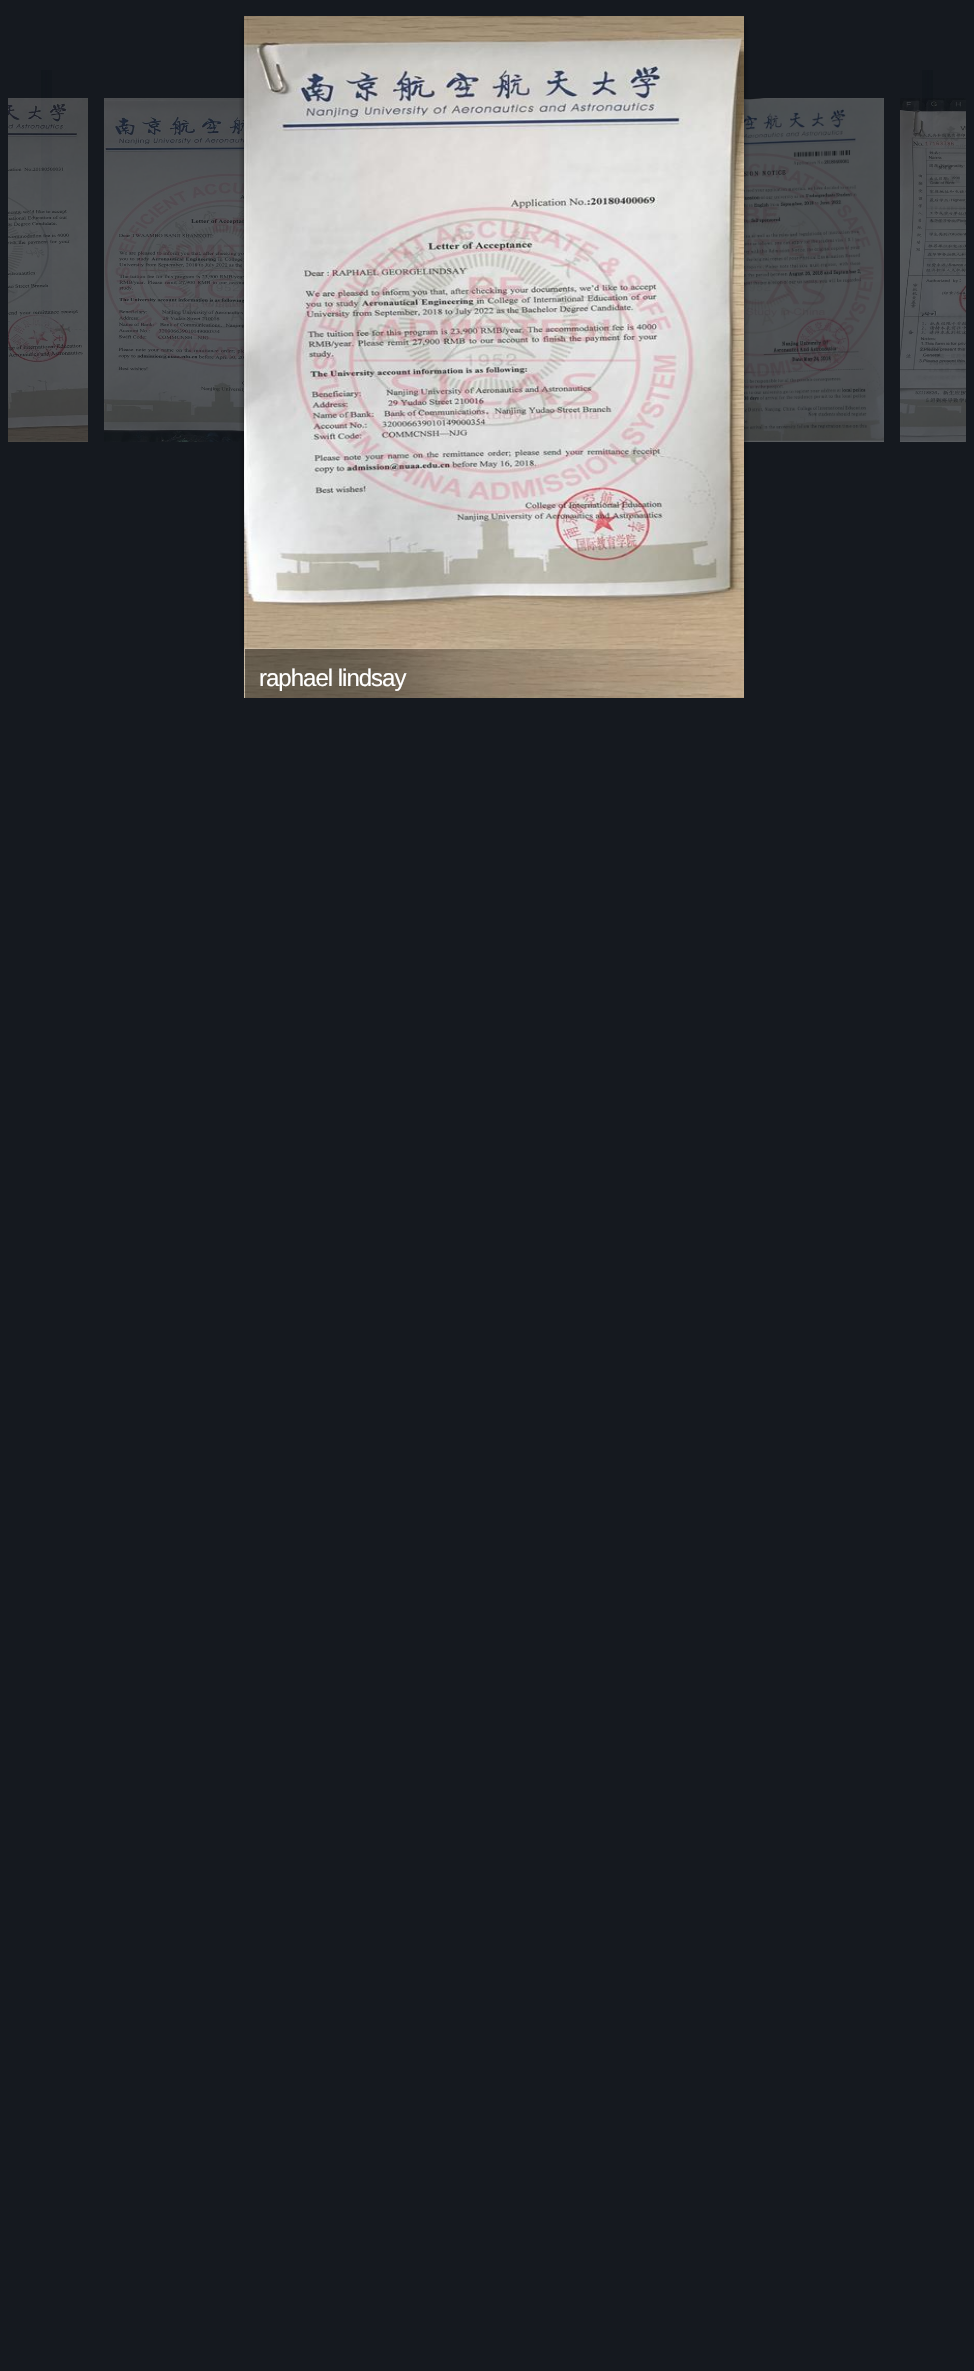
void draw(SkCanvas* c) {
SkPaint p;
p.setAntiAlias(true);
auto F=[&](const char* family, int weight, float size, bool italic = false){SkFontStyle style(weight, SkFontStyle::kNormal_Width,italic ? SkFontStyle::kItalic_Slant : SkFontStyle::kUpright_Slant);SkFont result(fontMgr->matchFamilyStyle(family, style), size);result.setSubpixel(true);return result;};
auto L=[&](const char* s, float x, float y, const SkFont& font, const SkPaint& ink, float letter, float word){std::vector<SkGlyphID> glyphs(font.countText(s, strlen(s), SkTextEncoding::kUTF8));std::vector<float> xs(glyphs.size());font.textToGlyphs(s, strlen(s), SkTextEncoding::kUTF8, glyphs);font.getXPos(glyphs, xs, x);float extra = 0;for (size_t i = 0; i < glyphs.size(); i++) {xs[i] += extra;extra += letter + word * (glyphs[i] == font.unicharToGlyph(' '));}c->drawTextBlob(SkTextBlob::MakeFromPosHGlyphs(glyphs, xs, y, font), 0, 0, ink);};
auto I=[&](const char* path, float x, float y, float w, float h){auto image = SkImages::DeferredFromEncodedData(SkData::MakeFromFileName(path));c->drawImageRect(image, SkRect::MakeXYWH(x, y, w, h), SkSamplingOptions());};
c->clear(0xff15191f);
I("1.png",41,70,11,263);
I("2.png",922,70,11,263);
I("3.png",8,98,80,344);
I("4.png",104,98,140,344);
I("5.png",744,98,140,344);
I("6.png",900,98,66,344);
I("7.png",239,16,510,645);
I("8.png",244,16,500,682);
I("9.png",244,648,500,50);
auto f1 = F("Liberation Sans",400,24);
p.setColor(0xffffffff);
L("raphael lindsay",259,686,f1,p,-1,0);
}
